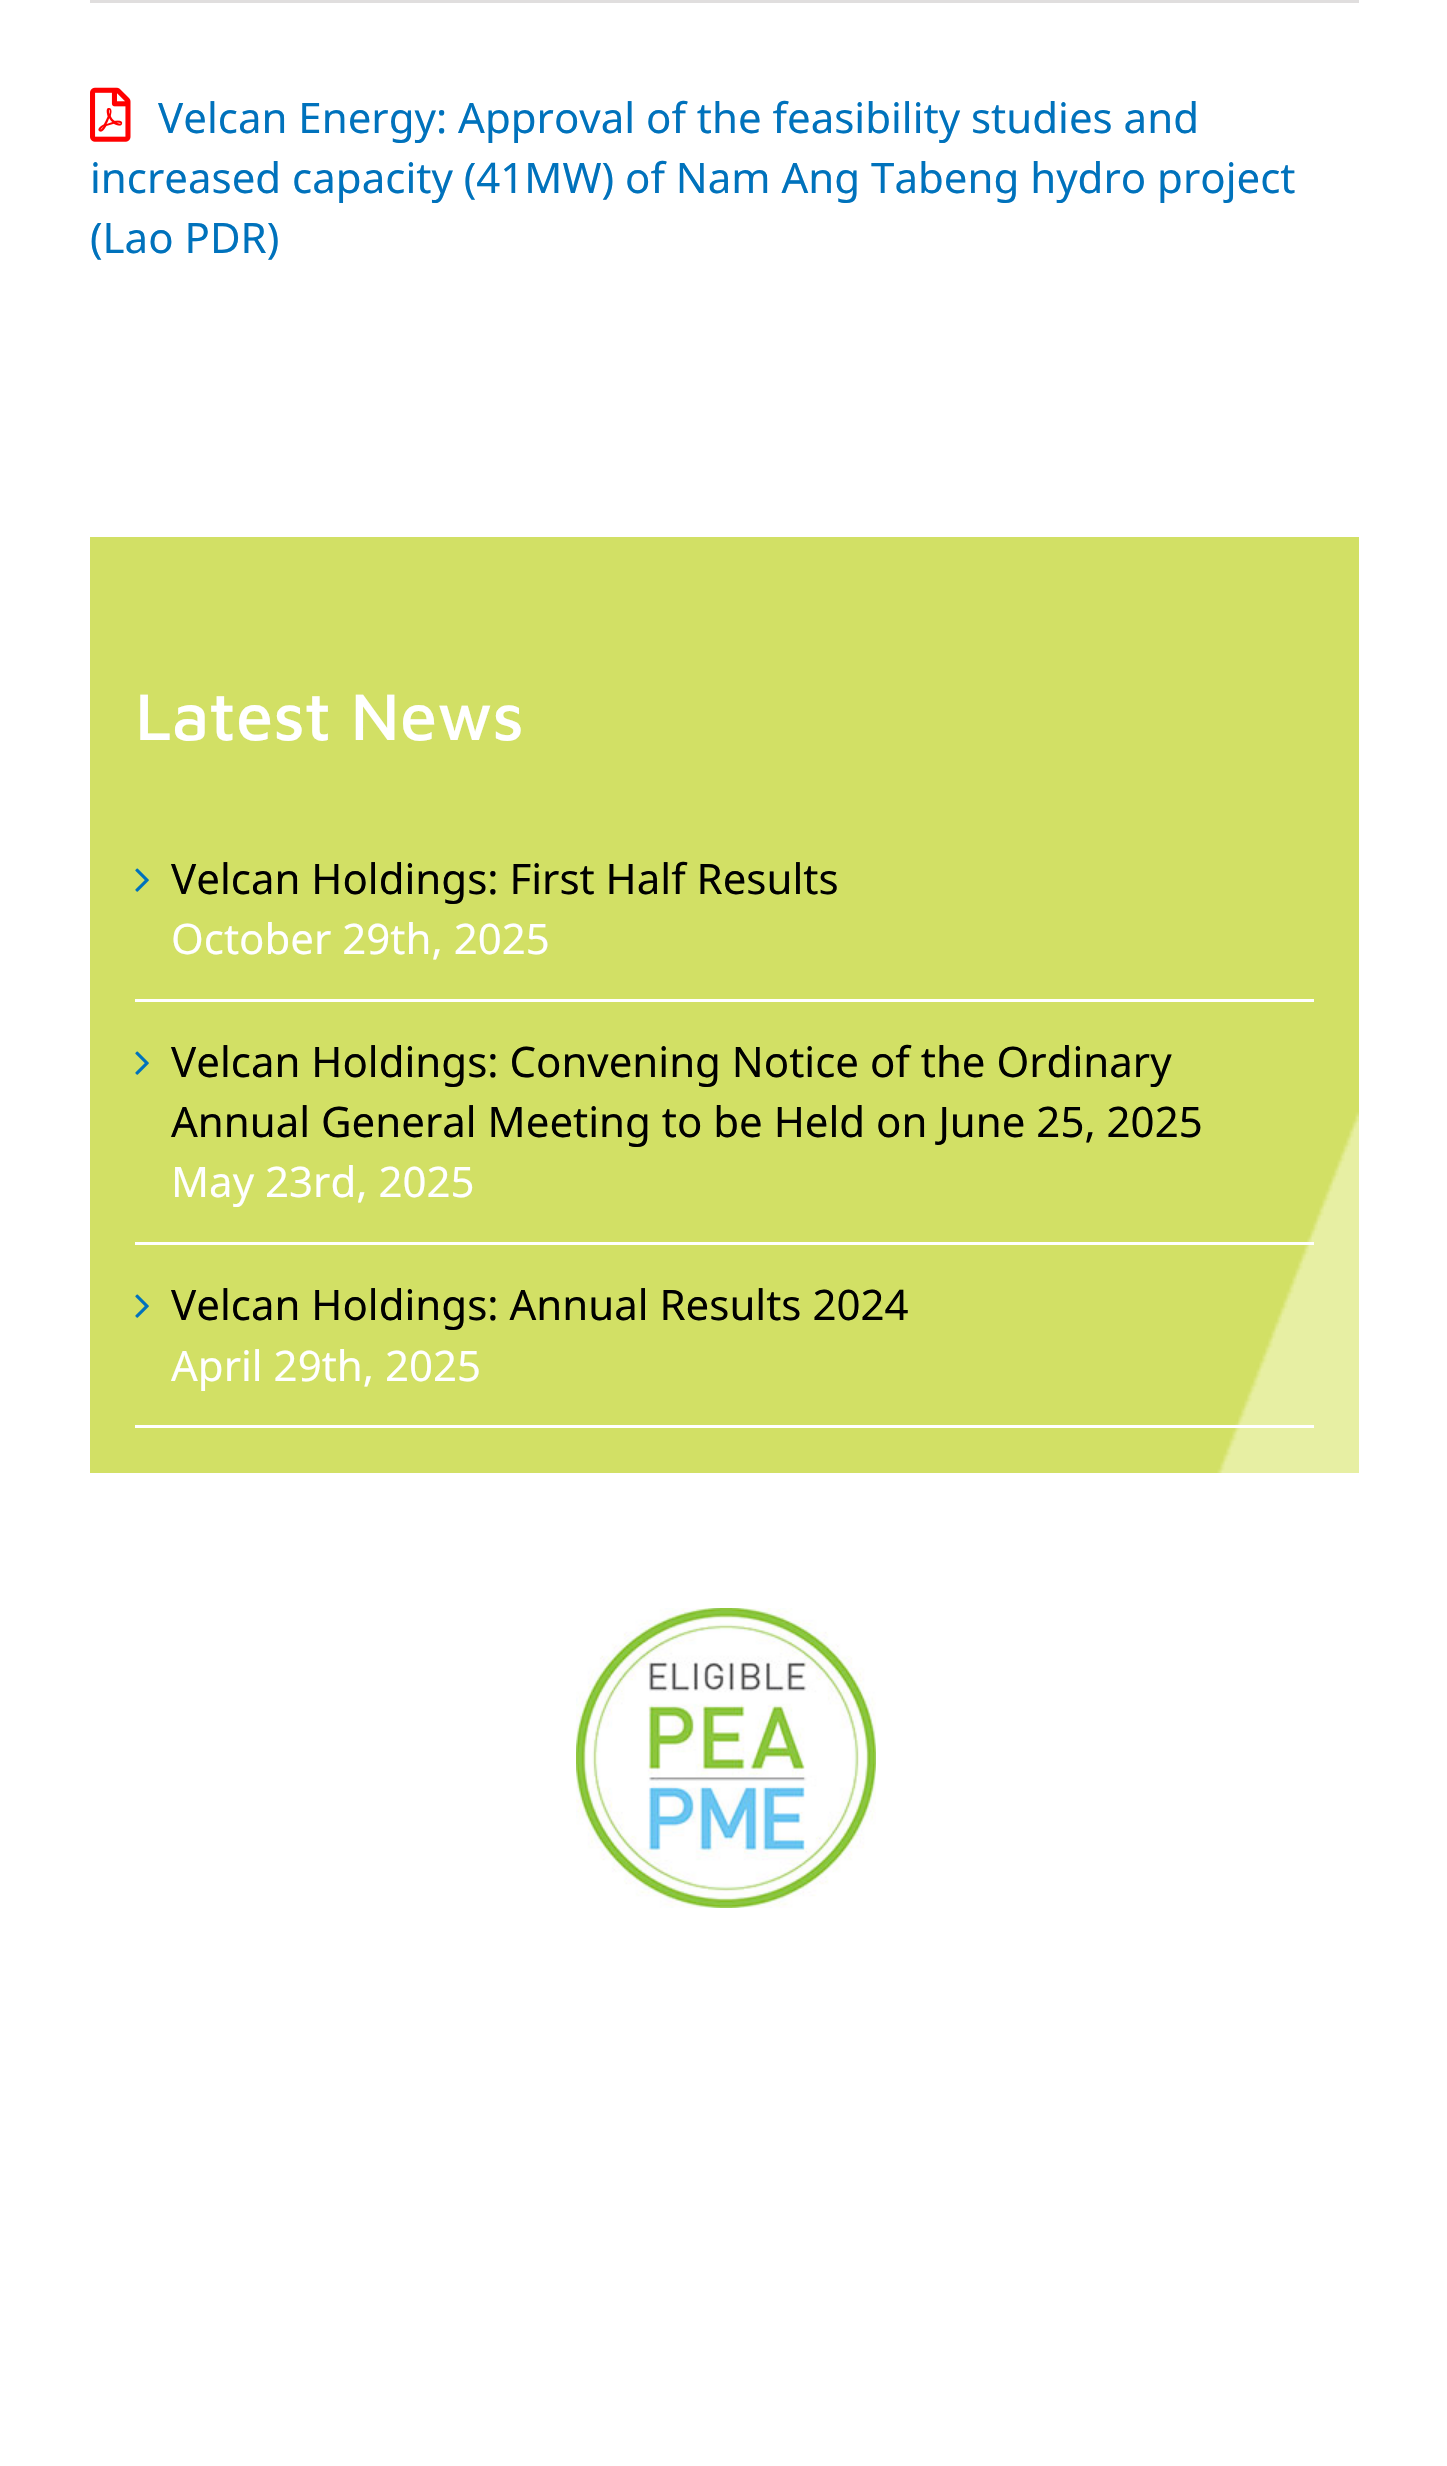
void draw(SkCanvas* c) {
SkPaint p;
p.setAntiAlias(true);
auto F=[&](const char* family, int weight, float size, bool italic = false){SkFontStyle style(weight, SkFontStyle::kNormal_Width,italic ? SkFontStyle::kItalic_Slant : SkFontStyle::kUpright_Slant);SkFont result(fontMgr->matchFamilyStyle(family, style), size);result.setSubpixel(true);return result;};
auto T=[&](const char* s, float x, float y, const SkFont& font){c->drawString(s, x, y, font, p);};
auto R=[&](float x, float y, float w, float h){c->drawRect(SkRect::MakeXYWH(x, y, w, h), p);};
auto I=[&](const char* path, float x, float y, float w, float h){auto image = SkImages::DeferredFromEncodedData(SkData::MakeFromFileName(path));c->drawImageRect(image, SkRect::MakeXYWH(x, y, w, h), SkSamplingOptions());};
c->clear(0xffffffff);
p.setColor(0xffe0dede);
R(90,0,1269,3);
I("1.png",90,87,41,55);
auto f1 = F("Noto Sans",400,42);
p.setColor(0xff0072bc);
T("Velcan Energy: Approval of the feasibility studies and",158,133,f1);
T("increased capacity (41MW) of Nam Ang Tabeng hydro project",90,193,f1);
T("(Lao PDR)",90,253,f1);
p.setColor(0xffd2e065);
R(90,537,1269,936);
I("2.png",1217,1112,142,361);
auto f2 = F("Maven Pro",500,68);
p.setColor(0xffffffff);
T("Latest News",135,740,f2);
R(135,999,1179,3);
I("3.png",135,868,14,24);
p.setColor(0xff000000);
T("Velcan Holdings: First Half Results",171,894,f1);
p.setColor(0xffffffff);
T("October 29th, 2025",171,954,f1);
R(135,1242,1179,3);
I("3.png",135,1051,14,24);
p.setColor(0xff000000);
T("Velcan Holdings: Convening Notice of the Ordinary",171,1077,f1);
T("Annual General Meeting to be Held on June 25, 2025",171,1137,f1);
p.setColor(0xffffffff);
T("May 23rd, 2025",171,1197,f1);
R(135,1425,1179,3);
I("3.png",135,1294,14,24);
p.setColor(0xff000000);
T("Velcan Holdings: Annual Results 2024",171,1320,f1);
p.setColor(0xffffffff);
T("April 29th, 2025",171,1381,f1);
I("4.png",576,1608,300,300);
}
